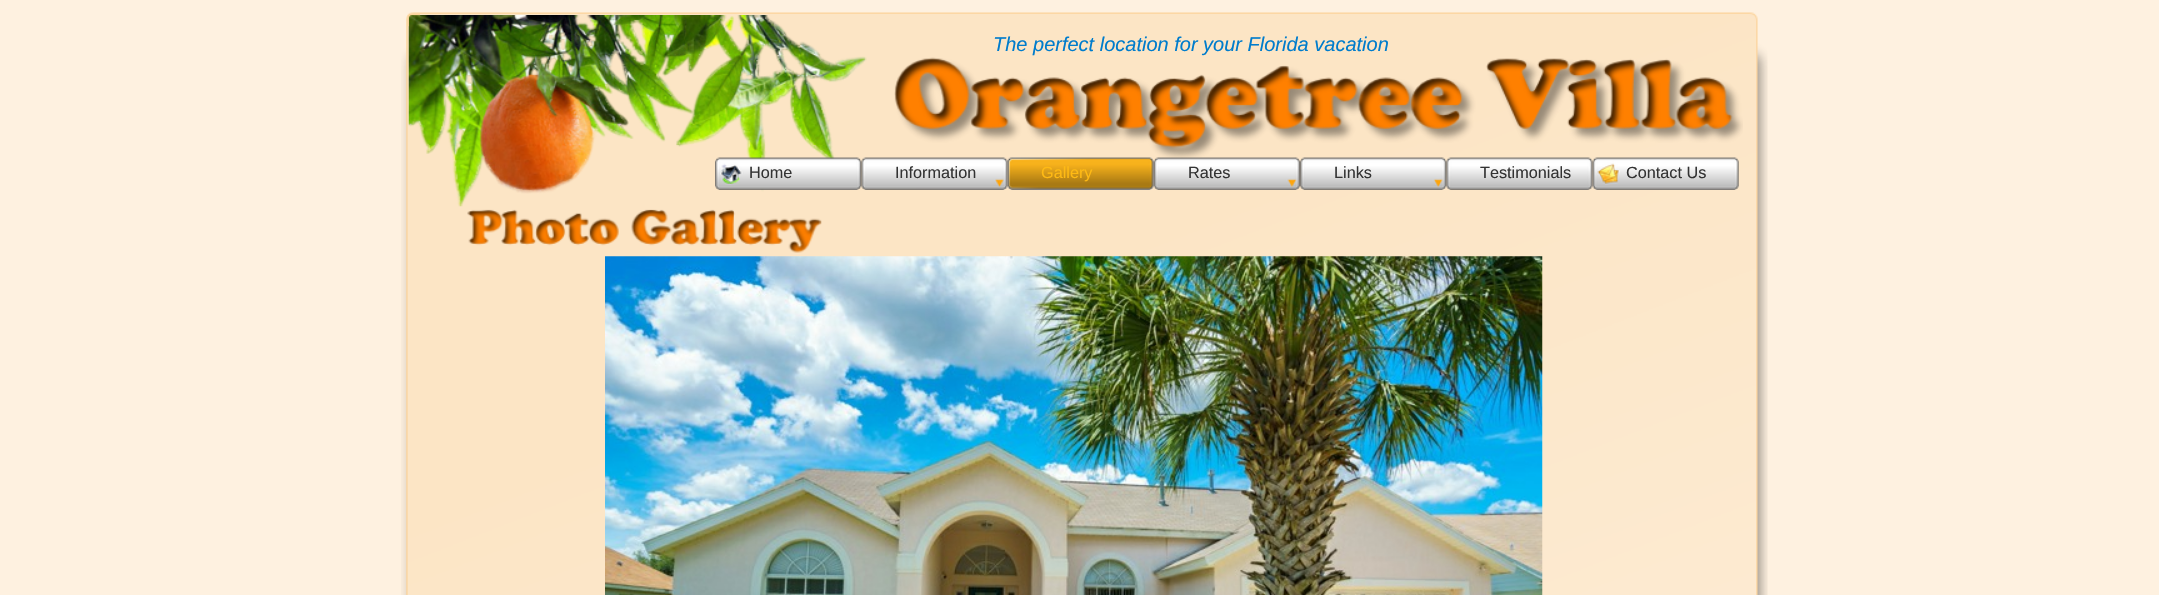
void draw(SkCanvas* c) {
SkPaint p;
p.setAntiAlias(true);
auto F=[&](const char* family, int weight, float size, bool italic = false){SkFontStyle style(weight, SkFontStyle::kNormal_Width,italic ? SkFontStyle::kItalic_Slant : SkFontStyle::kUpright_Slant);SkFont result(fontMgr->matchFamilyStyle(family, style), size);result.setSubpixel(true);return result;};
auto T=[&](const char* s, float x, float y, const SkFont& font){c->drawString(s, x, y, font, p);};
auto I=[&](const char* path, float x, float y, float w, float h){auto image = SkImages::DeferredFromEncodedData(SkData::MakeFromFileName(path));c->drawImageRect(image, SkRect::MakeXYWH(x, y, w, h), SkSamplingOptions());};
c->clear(0xfffef1e0);
I("1.png",401,12,1367,583);
I("3.png",408,15,459,192);
I("2.png",407,13,13,14);
auto f1 = F("Liberation Sans",400,20,true);
p.setColor(0xff007ccc);
T("The perfect location for your Florida vacation",993,51,f1);
I("4.png",894,57,849,102);
I("5.png",715,157,147,33);
auto f2 = F("Liberation Sans",400,16.25);
p.setColor(0xff333333);
T("Home",749,178,f2);
I("6.png",861,157,147,33);
T("Information",895,178,f2);
I("7.png",1007,157,147,33);
p.setColor(0xffffba14);
T("Gallery",1041,178,f2);
I("8.png",1153,157,147,33);
p.setColor(0xff333333);
T("Rates",1188,178,f2);
I("9.png",1300,157,147,33);
T("Links",1334,178,f2);
I("10.png",1446,157,147,33);
T("Testimonials",1480,178,f2);
I("11.png",1592,157,147,33);
T("Contact Us",1626,178,f2);
I("12.png",467,209,355,44);
I("13.png",605,256,938,339);
}
